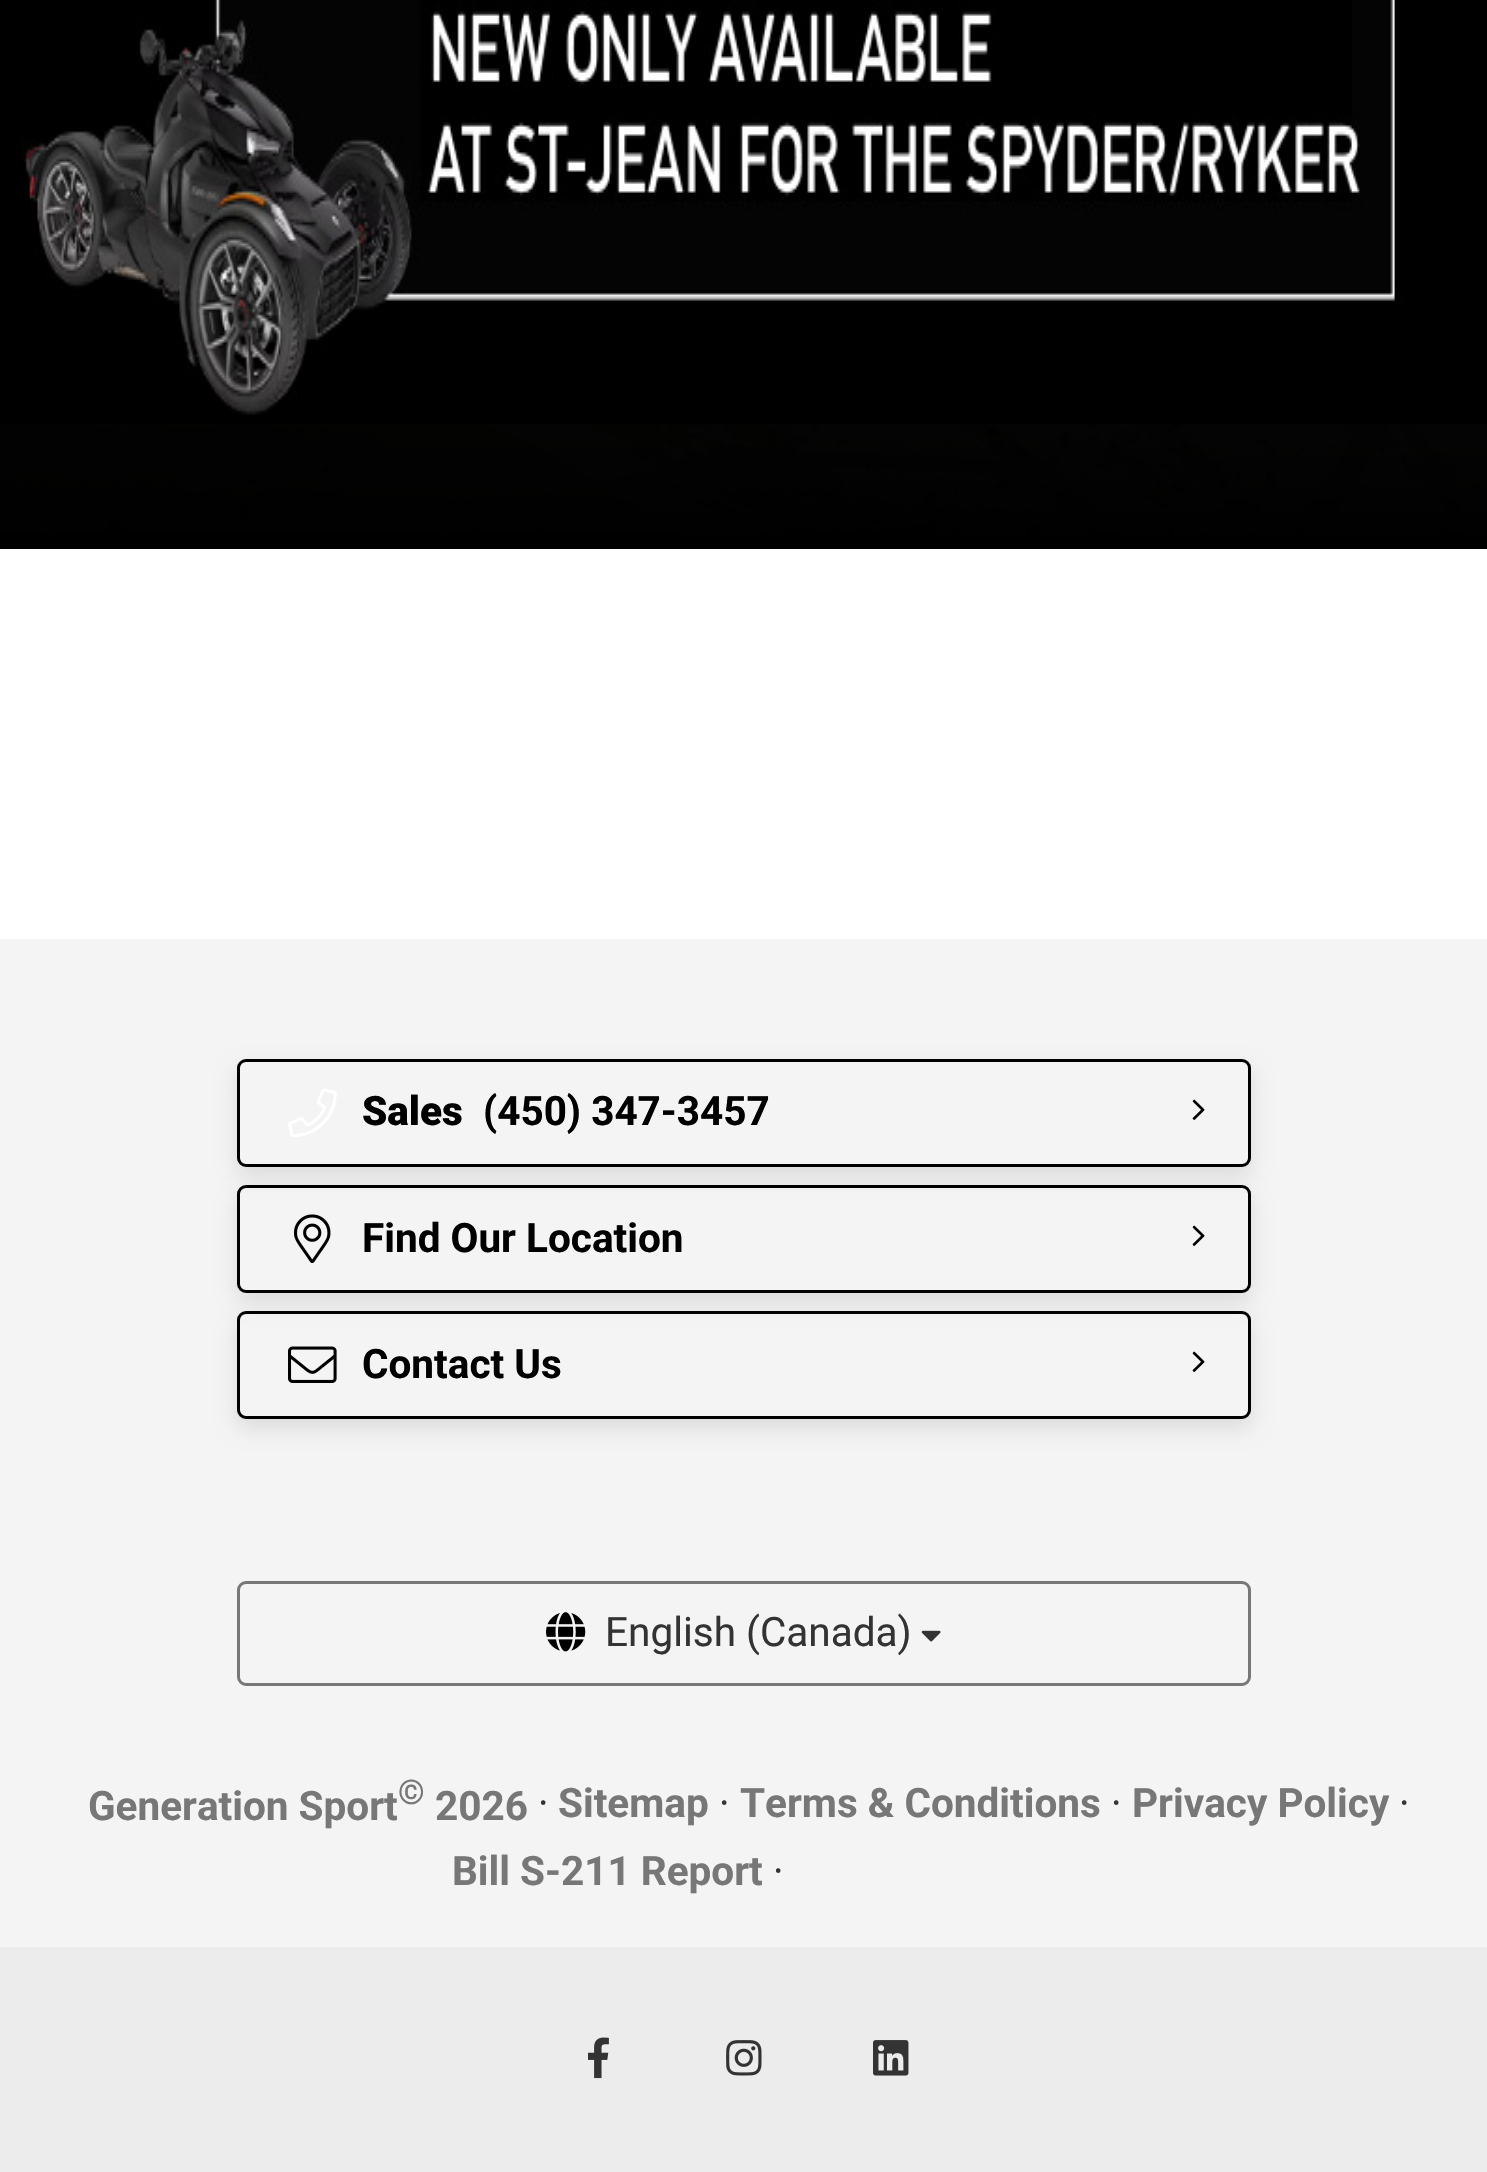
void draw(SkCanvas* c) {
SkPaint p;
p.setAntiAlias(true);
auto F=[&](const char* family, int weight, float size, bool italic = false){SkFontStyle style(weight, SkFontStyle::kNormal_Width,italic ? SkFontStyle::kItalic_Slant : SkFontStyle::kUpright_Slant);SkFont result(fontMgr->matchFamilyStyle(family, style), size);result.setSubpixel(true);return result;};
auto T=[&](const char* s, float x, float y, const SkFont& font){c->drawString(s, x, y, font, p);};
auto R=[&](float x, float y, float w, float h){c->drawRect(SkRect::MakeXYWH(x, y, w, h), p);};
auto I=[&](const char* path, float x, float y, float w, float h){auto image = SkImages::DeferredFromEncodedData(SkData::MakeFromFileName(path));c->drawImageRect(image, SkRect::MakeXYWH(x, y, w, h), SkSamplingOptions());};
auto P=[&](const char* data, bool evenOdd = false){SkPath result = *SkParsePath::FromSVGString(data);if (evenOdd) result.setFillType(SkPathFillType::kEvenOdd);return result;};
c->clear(0xffffffff);
I("1.png",0,424,1487,125);
I("2.png",0,0,1487,424);
p.setColor(0xfff4f4f4);
R(0,939,1487,1008);
c->save();
c->clipPath(P("M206 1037h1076v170h-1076zm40 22h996c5 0 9 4 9 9v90c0 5-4 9-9 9h-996c-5 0-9-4-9-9v-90c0-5 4-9 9-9z",true),true);
p.setColor(0x1a000000);
p.setMaskFilter(SkMaskFilter::MakeBlur(kNormal_SkBlurStyle, 10));
c->drawRoundRect(SkRect::MakeXYWH(237,1068,1014,108),9,9,p);
p.setMaskFilter(nullptr);
c->restore();
p.setStroke(true);
p.setStrokeWidth(3);
p.setColor(0xff000000);
c->drawRoundRect(SkRect::MakeXYWH(238.5,1060.5,1011,105),7.5,7.5,p);
I("3.png",288,1088,49,49);
auto f1 = F("Roboto",900,40.5);
p.setStroke(false);
T("Sales",362,1125,f1);
auto f2 = F("Roboto",700,40.5);
T("(450) 347-3457",483,1125,f2);
I("4.png",1192,1099,13,21);
c->save();
c->clipPath(P("M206 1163h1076v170h-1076zm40 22h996c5 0 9 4 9 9v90c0 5-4 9-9 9h-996c-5 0-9-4-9-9v-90c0-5 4-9 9-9z",true),true);
p.setColor(0x1a000000);
p.setMaskFilter(SkMaskFilter::MakeBlur(kNormal_SkBlurStyle, 10));
c->drawRoundRect(SkRect::MakeXYWH(237,1194,1014,108),9,9,p);
p.setMaskFilter(nullptr);
c->restore();
p.setStroke(true);
p.setColor(0xff000000);
c->drawRoundRect(SkRect::MakeXYWH(238.5,1186.5,1011,105),7.5,7.5,p);
I("5.png",294,1214,37,50);
p.setStroke(false);
T("Find Our Location",362,1252,f2);
I("4.png",1192,1225,13,21);
c->save();
c->clipPath(P("M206 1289h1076v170h-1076zm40 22h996c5 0 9 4 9 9v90c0 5-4 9-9 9h-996c-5 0-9-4-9-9v-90c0-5 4-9 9-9z",true),true);
p.setColor(0x1a000000);
p.setMaskFilter(SkMaskFilter::MakeBlur(kNormal_SkBlurStyle, 10));
c->drawRoundRect(SkRect::MakeXYWH(237,1320,1014,108),9,9,p);
p.setMaskFilter(nullptr);
c->restore();
p.setStroke(true);
p.setColor(0xff000000);
c->drawRoundRect(SkRect::MakeXYWH(238.5,1312.5,1011,105),7.5,7.5,p);
I("6.png",288,1346,49,37);
p.setStroke(false);
T("Contact Us",362,1378,f2);
I("4.png",1192,1351,13,21);
p.setStroke(true);
p.setColor(0xff777777);
c->drawRoundRect(SkRect::MakeXYWH(238.5,1582.5,1011,102),7.5,7.5,p);
I("7.png",546,1612,40,40);
auto f3 = F("Roboto",400,40.5);
p.setStroke(false);
p.setColor(0xff333333);
T("English (Canada)",605,1646,f3);
I("8.png",921,1630,20,12);
p.setColor(0xff777777);
T("Generation Sport",88,1820,f2);
auto f4 = F("Roboto",700,34);
T("©",398,1804,f4);
T("2026",435,1820,f2);
p.setColor(0xff333333);
T("·",538,1817,f3);
p.setColor(0xff777777);
T("Sitemap",558,1817,f2);
p.setColor(0xff333333);
T("·",719,1817,f3);
p.setColor(0xff777777);
T("Terms & Conditions",740,1817,f2);
p.setColor(0xff333333);
T("·",1111,1817,f3);
p.setColor(0xff777777);
T("Privacy Policy",1132,1817,f2);
p.setColor(0xff333333);
T("·",1399,1817,f3);
p.setColor(0xff777777);
T("Bill S-211 Report",452,1885,f2);
p.setColor(0xff333333);
T("·",773,1885,f3);
p.setColor(0xffececec);
R(0,1947,1487,225);
I("9.png",588,2037,21,42);
I("10.png",726,2040,36,36);
I("11.png",873,2040,36,36);
}
